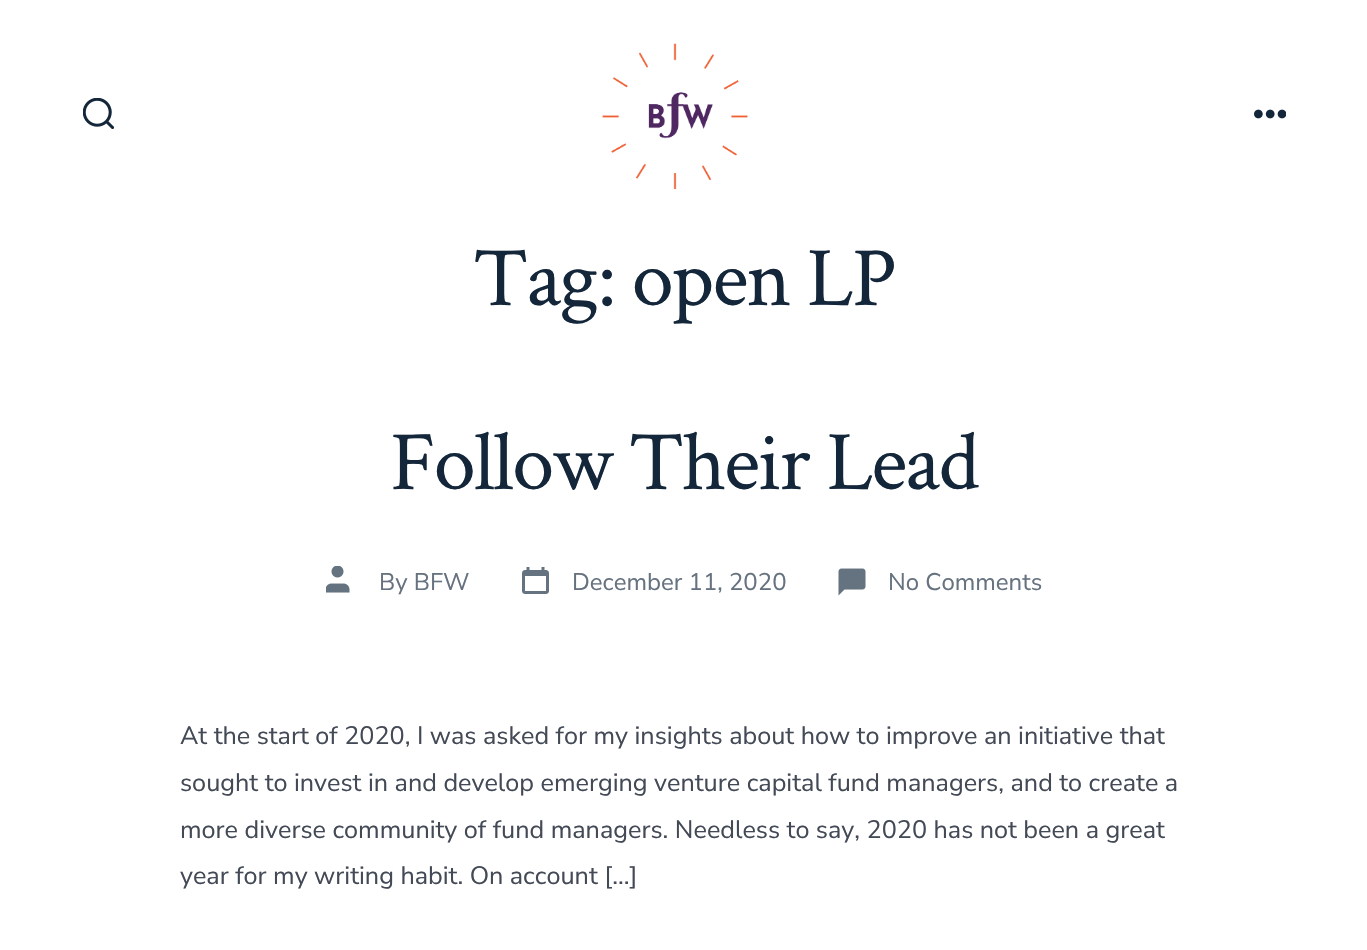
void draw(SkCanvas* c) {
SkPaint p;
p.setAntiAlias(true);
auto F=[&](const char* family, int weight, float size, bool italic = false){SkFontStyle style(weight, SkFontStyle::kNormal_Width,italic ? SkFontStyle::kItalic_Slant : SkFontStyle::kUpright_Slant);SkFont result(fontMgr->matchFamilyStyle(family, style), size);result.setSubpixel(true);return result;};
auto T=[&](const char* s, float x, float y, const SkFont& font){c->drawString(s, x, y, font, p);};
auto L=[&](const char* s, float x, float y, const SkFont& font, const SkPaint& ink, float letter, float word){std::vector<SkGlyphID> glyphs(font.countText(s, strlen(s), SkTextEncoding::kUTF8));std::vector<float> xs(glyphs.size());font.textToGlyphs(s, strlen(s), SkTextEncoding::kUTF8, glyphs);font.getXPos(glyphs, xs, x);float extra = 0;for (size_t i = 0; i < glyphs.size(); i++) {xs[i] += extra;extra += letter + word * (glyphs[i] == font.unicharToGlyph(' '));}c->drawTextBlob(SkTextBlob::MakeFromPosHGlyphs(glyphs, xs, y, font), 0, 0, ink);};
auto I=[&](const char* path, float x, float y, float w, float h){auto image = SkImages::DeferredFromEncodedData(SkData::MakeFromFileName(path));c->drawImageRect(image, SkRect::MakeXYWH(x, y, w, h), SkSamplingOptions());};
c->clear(0xffffffff);
I("1.png",83,98,31,31);
I("2.png",602,43,146,147);
I("3.png",1254,109,32,10);
auto f1 = F("Crimson Text",400,84.5);
p.setColor(0xff13263a);
L("Tag: open LP",473,305,f1,p,-1.7,0);
L("Follow Their Lead",390,489,f1,p,-1.7,0);
I("4.png",326,566,24,27);
auto f2 = F("Nunito Sans",400,24);
p.setColor(0xff66727f);
T("By BFW",379,590,f2);
I("5.png",522,567,27,27);
T("December 11, 2020",572,590,f2);
I("6.png",838,568,28,28);
T("No Comments",888,590,f2);
auto f3 = F("Nunito Sans",400,25.2);
p.setColor(0xff434a56);
T("At the start of 2020, I was asked for my insights about how to improve an initiative that",180,744,f3);
T("sought to invest in and develop emerging venture capital fund managers, and to create a",180,791,f3);
T("more diverse community of fund managers. Needless to say, 2020 has not been a great",180,838,f3);
T("year for my writing habit. On account […]",180,884,f3);
}
